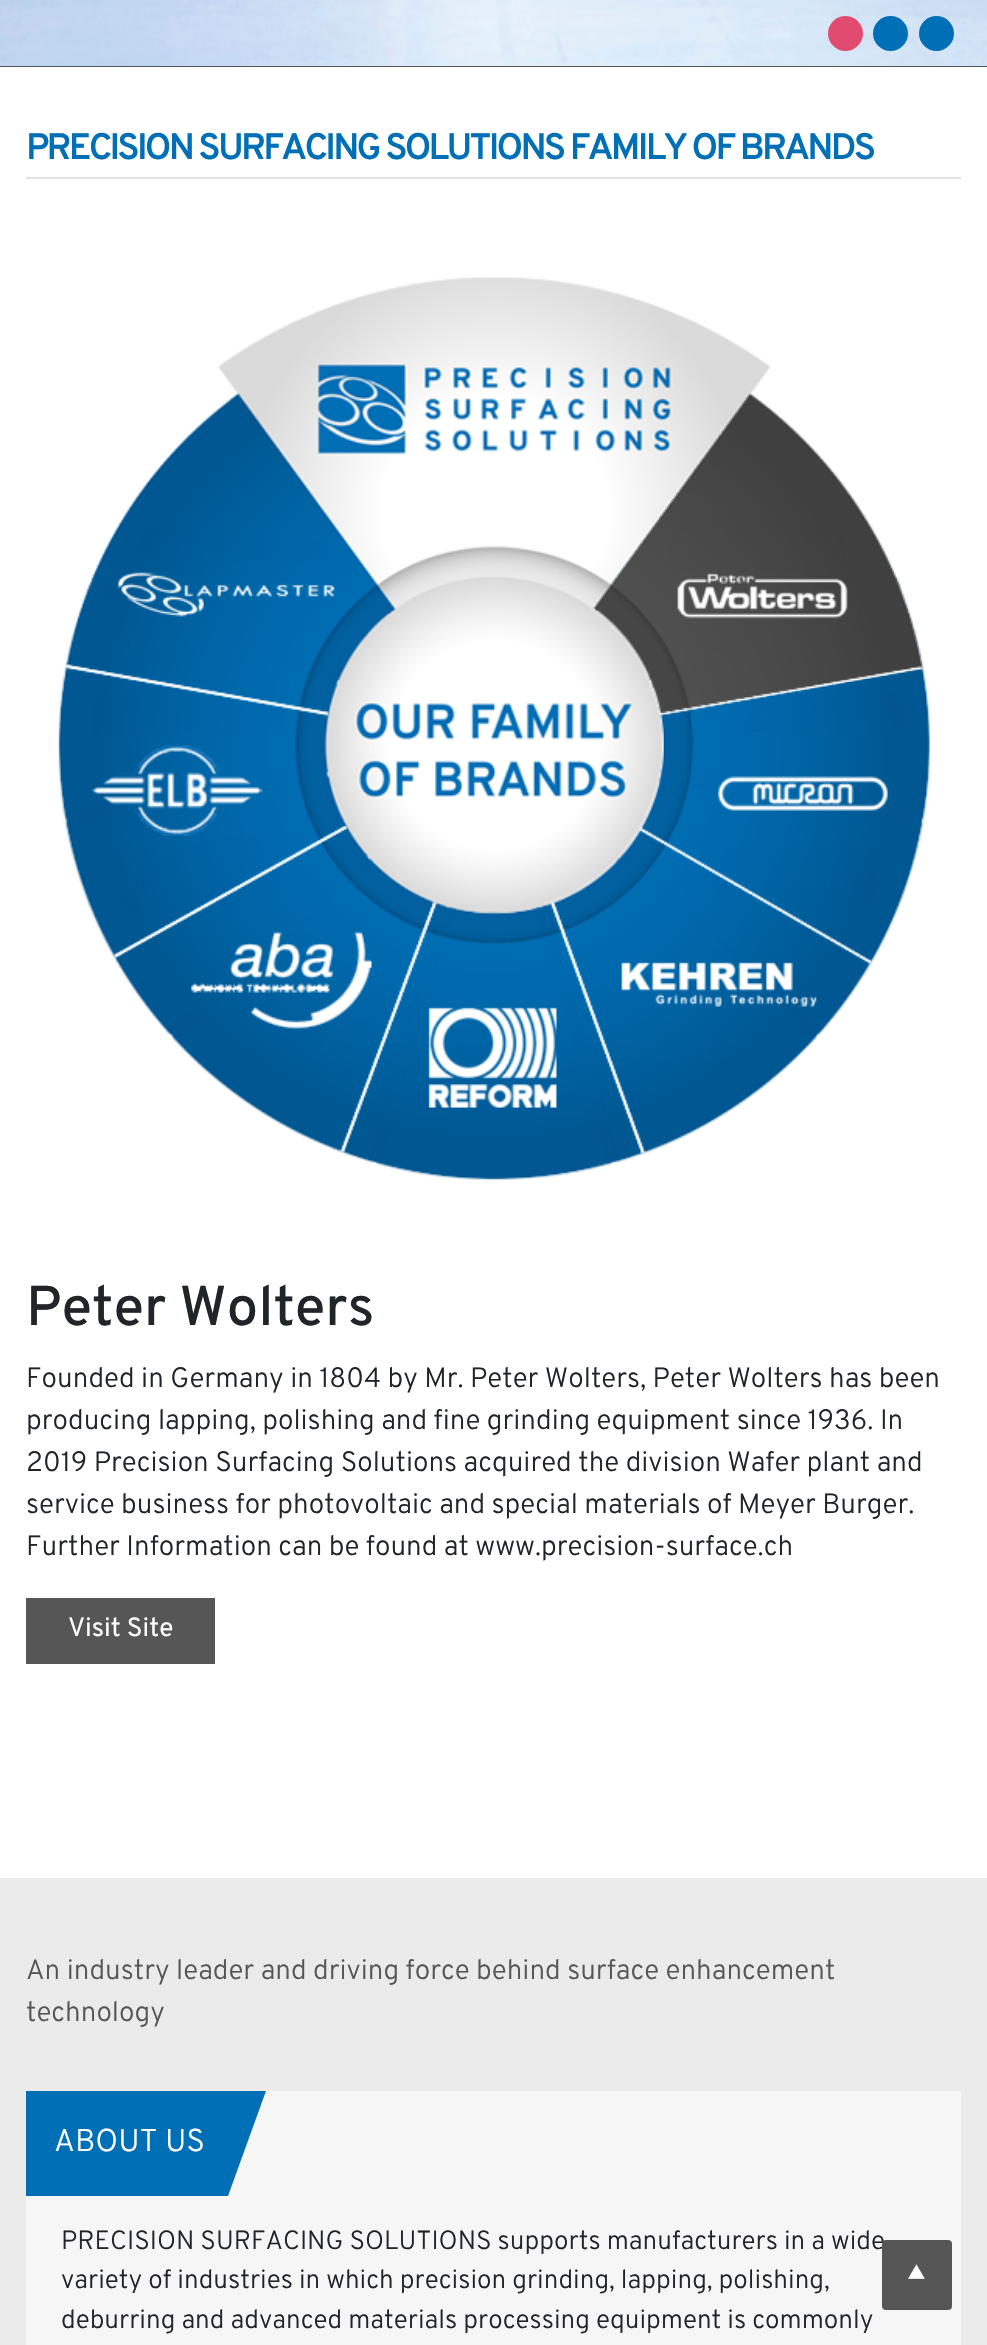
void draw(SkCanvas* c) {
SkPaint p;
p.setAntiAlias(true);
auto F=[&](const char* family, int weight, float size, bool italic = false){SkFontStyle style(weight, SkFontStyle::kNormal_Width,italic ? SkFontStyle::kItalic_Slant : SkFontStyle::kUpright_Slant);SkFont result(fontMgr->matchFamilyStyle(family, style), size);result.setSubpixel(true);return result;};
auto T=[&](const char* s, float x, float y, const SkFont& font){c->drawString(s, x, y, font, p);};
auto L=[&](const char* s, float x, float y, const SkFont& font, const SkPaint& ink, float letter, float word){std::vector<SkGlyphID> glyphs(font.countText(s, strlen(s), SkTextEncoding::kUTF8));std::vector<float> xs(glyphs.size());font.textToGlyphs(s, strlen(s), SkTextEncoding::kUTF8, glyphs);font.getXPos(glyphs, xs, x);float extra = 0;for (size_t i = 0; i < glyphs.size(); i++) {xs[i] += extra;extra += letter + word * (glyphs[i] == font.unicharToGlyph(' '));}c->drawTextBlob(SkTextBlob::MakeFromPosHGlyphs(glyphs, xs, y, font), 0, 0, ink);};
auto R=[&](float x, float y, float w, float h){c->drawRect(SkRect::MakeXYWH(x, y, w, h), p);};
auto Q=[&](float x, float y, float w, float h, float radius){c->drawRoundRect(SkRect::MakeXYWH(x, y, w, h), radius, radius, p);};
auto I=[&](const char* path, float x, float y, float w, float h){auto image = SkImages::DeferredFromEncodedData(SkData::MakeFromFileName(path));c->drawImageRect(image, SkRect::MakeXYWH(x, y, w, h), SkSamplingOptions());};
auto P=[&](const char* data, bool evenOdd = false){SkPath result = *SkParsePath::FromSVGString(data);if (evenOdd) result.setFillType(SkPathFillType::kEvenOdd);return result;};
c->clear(0xffffffff);
p.setColor(0xff565656);
R(0,66,987,1);
I("1.png",0,0,987,66);
p.setColor(0xffe24b70);
c->drawCircle(845.5,33.5,17.5,p);
p.setColor(0xff006fb6);
c->drawCircle(890.5,33.5,17.5,p);
c->drawCircle(936.5,33.5,17.5,p);
p.setColor(0xffe2e2e2);
R(26,177,935,2);
auto f1 = F("Overpass",600,36.75);
p.setColor(0xff006fb6);
L("PRECISION SURFACING SOLUTIONS FAMILY OF BRANDS",26,159,f1,p,-2.8,0);
I("2.png",58,277,872,903);
I("3.png",593,391,331,324);
auto f2 = F("Overpass",500,56);
p.setColor(0xff212529);
T("Peter Wolters",26,1325,f2);
auto f3 = F("Overpass",300,28);
T("Founded in Germany in 1804 by Mr. Peter Wolters, Peter Wolters has been",26,1387,f3);
T("producing lapping, polishing and fine grinding equipment since 1936. In",26,1429,f3);
T("2019 Precision Surfacing Solutions acquired the division Wafer plant and",26,1471,f3);
T("service business for photovoltaic and special materials of Meyer Burger.",26,1513,f3);
T("Further Information can be found at www.precision-surface.ch",26,1555,f3);
p.setColor(0xff565656);
R(26,1598,189,66);
auto f4 = F("Overpass",400,26.25);
p.setColor(0xffffffff);
T("Visit Site",68,1636,f4);
p.setColor(0xffebebeb);
R(0,1878,987,467);
p.setColor(0xff565656);
T("An industry leader and driving force behind surface enhancement",26,1979,f3);
T("technology",26,2021,f3);
p.setColor(0xfff6f6f6);
R(26,2091,935,254);
c->save();
c->clipRect(SkRect::MakeXYWH(26,2091,909,105));
p.setColor(0xff006fb6);
c->drawPath(P("M17 2091h249l-38 105h-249z"),p);
c->restore();
auto f5 = F("Overpass",300,31.5);
p.setColor(0xffffffff);
T("ABOUT US",54,2151,f5);
auto f6 = F("Overpass",300,26.25);
p.setColor(0xff212529);
T("PRECISION SURFACING SOLUTIONS supports manufacturers in a wide",61,2249,f6);
T("variety of industries in which precision grinding, lapping, polishing,",61,2288,f6);
T("deburring and advanced materials processing equipment is commonly",61,2328,f6);
p.setColor(0xff565656);
Q(882,2240,70,70,4);
auto f7 = F("Overpass",300,24);
p.setColor(0xffffffff);
T("▲",907,2280,f7);
}
